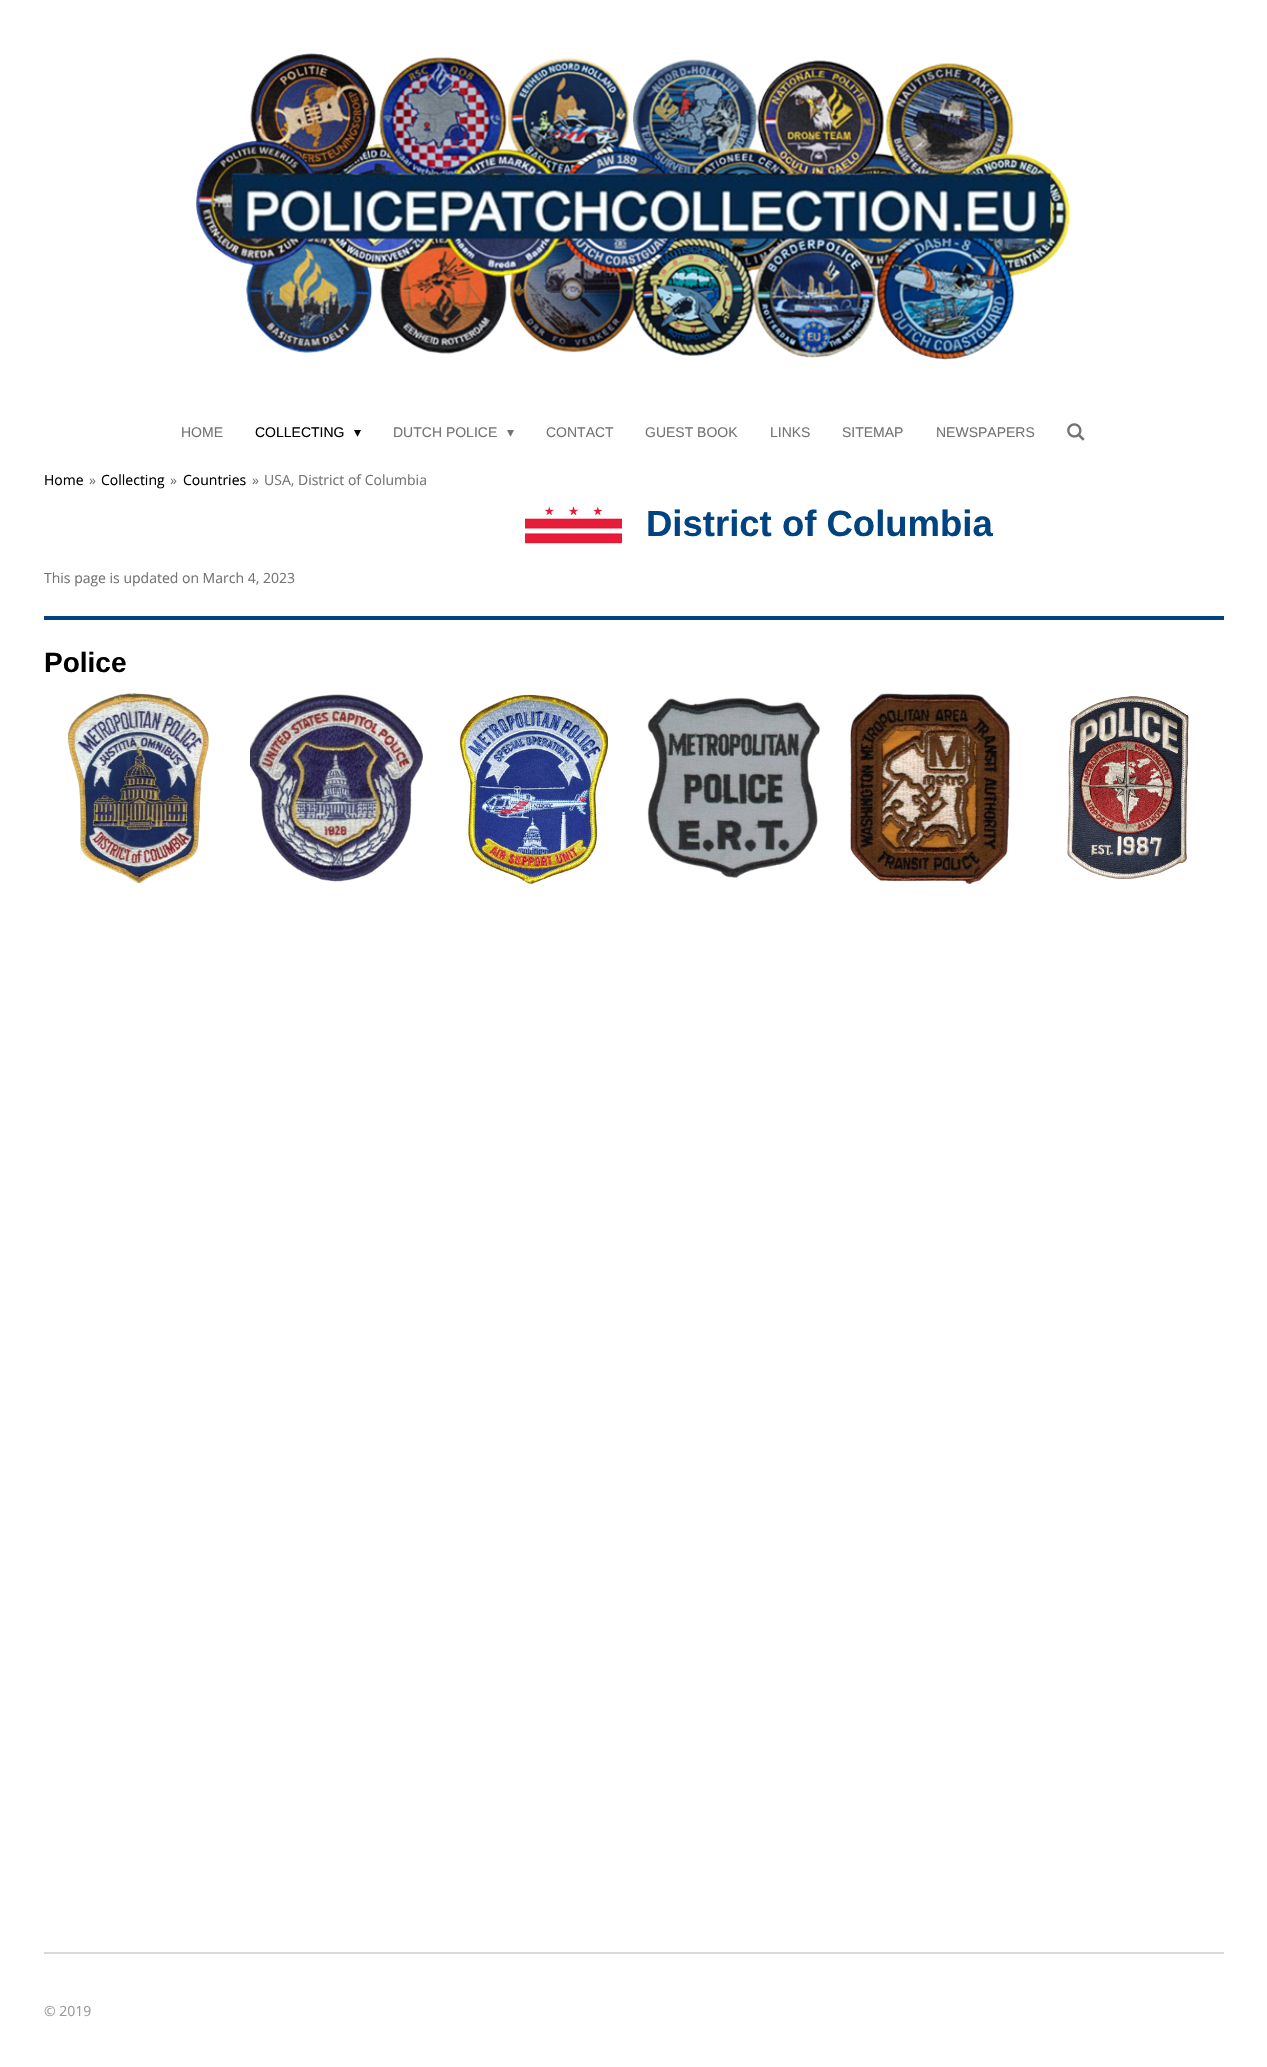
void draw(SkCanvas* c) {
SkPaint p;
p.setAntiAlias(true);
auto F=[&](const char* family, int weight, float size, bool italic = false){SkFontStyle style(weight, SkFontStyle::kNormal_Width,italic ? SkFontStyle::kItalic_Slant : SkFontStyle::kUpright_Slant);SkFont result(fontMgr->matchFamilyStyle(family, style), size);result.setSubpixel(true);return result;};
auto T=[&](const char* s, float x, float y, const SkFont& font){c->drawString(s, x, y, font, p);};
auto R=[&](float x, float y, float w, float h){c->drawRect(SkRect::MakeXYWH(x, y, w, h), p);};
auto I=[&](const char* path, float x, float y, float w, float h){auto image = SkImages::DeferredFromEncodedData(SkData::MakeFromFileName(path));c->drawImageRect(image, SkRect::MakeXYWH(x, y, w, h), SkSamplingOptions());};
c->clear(0xffffffff);
I("1.png",196,53,874,307);
auto f1 = F("Liberation Sans",400,14);
p.setColor(0xff737373);
T("HOME",181,437,f1);
p.setColor(0xff000000);
T("COLLECTING",255,437,f1);
auto f2 = F("DejaVu Sans",400,14);
T("▾",354,437,f2);
p.setColor(0xff737373);
T("DUTCH POLICE",393,437,f1);
T("▾",507,437,f2);
T("CONTACT",546,437,f1);
T("GUEST BOOK",645,437,f1);
T("LINKS",770,437,f1);
T("SITEMAP",842,437,f1);
T("NEWSPAPERS",936,437,f1);
I("2.png",1067,423,18,18);
auto f3 = F("Open Sans",400,14);
p.setColor(0xff000000);
T("Home",44,485,f3);
p.setColor(0xff737373);
T("»",89,485,f3);
p.setColor(0xff000000);
T("Collecting",101,485,f3);
p.setColor(0xff737373);
T("»",170,485,f3);
p.setColor(0xff000000);
T("Countries",183,485,f3);
p.setColor(0xff737373);
T("»",252,485,f3);
T("USA, District of Columbia",264,485,f3);
I("3.png",525,506,97,38);
auto f4 = F("Liberation Sans",700,36.5);
p.setColor(0xff004380);
T("District of Columbia",646,536,f4);
p.setColor(0xff737373);
T("This page is updated on March 4, 2023",44,583,f3);
p.setColor(0xff004380);
R(44,616,1180,4);
auto f5 = F("Liberation Sans",700,28);
p.setColor(0xff000000);
T("Police",44,672,f5);
I("4.png",67,693,142,191);
I("5.png",250,694,173,188);
I("6.png",459,694,149,190);
I("7.png",647,697,174,181);
I("8.png",850,693,161,191);
I("9.png",1067,696,122,183);
p.setColor(0xffd9d9d9);
R(44,1952,1180,2);
p.setColor(0xff999999);
T("© 2019",44,2016,f3);
}
